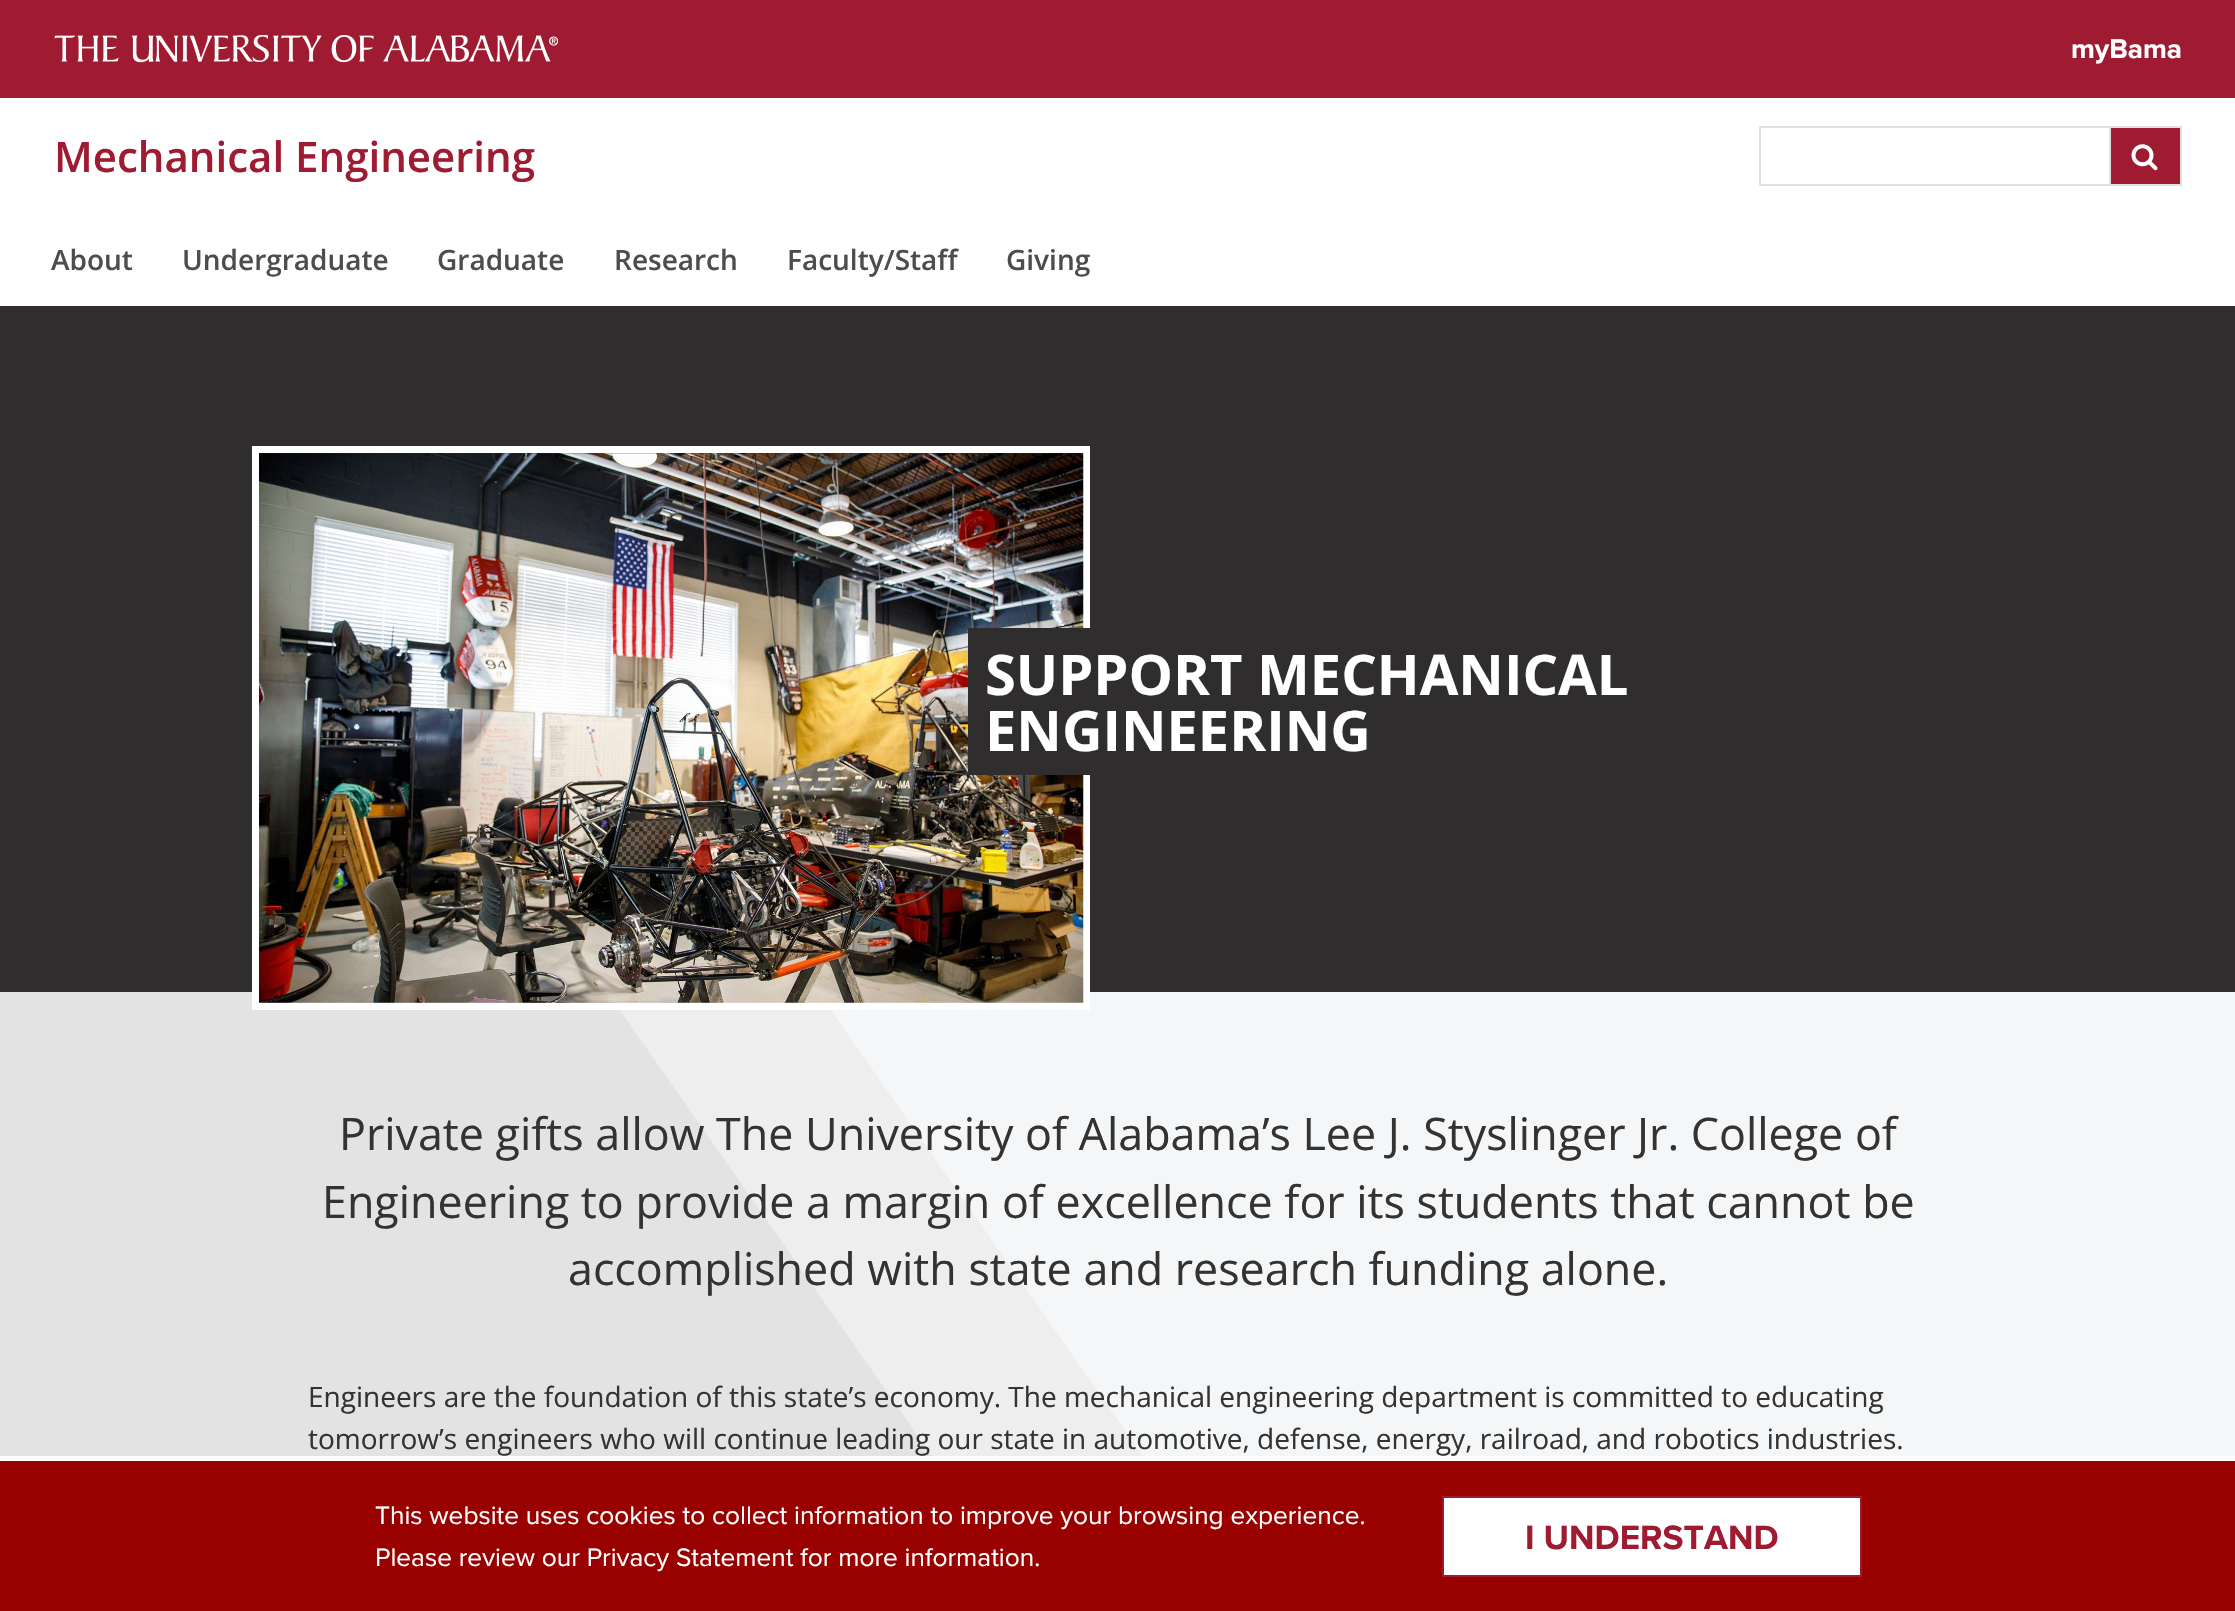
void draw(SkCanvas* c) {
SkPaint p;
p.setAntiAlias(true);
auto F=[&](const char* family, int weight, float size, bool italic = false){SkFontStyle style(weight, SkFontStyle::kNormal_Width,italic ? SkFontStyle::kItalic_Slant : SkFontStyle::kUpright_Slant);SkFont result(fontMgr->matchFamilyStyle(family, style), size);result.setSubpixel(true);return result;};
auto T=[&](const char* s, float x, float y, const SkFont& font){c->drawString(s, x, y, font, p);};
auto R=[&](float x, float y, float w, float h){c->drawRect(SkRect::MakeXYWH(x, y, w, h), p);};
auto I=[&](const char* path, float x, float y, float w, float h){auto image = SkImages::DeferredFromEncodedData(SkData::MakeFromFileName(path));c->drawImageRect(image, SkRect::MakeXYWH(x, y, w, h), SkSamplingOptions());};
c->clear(0xffffffff);
p.setColor(0xff9e1b32);
R(0,0,2235,98);
I("1.png",54,35,504,28);
auto f1 = F("Proxima Nova",700,28);
p.setColor(0xffffffff);
T("myBama",2071,58,f1);
auto f2 = F("Open Sans",600,42);
p.setColor(0xff9e1b32);
T("Mechanical Engineering",54,172,f2);
p.setStroke(true);
p.setStrokeWidth(2);
p.setColor(0xffdfe2e5);
c->drawRect(SkRect::MakeXYWH(1760,127,357,58),p);
p.setStroke(false);
p.setColor(0xff9e1b32);
c->drawRect(SkRect::MakeXYWH(2110,127,71,58),p);
p.setStroke(true);
p.setColor(0xffdfe2e5);
c->drawRect(SkRect::MakeXYWH(2110,127,71,58),p);
I("2.png",2131,144,27,27);
auto f3 = F("Open Sans",600,28);
p.setStroke(false);
p.setColor(0xff4d4d4d);
T("About",51,270,f3);
T("Undergraduate",182,270,f3);
T("Graduate",437,270,f3);
T("Research",614,270,f3);
T("Faculty/Staff",787,270,f3);
T("Giving",1006,270,f3);
p.setColor(0xff302d2e);
R(0,306,2235,686);
{
const SkColor colors[] = {0xfff5f6f7,0xfff5f6f7,0xffeeeeee,0xffeeeeee,0xffe3e3e3,0xffe3e3e3};
const float stops[] = {0,.47,.47,.54,.54,1};
const SkPoint ends[] = {{2130,841}, {106,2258}};
p.setShader(SkGradientShader::MakeLinear(ends, colors, stops, 6, SkTileMode::kClamp));
p.setAlpha(255);
}
R(0,992,2235,464);
p.setStroke(true);
p.setStrokeWidth(7);
p.setShader(nullptr);
p.setColor(0xffffffff);
c->drawRect(SkRect::MakeXYWH(255.5,449.5,831,557),p);
I("3.png",259,453,825,550);
p.setStroke(false);
p.setColor(0xff302d2e);
R(968,628,122,147);
auto f4 = F("Open Sans",700,56);
p.setColor(0xffffffff);
T("SUPPORT MECHANICAL",985,695,f4);
T("ENGINEERING",985,751,f4);
auto f5 = F("Open Sans",400,44.8);
p.setColor(0xff333333);
T("Private gifts allow The University of Alabama’s Lee J. Styslinger Jr. College of",339,1150,f5);
T("Engineering to provide a margin of excellence for its students that cannot be",322,1218,f5);
T("accomplished with state and research funding alone.",568,1285,f5);
auto f6 = F("Open Sans",400,28);
T("Engineers are the foundation of this state’s economy. The mechanical engineering department is committed to educating",308,1407,f6);
T("tomorrow’s engineers who will continue leading our state in automotive, defense, energy, railroad, and robotics industries.",308,1449,f6);
p.setColor(0xff990000);
R(0,1461,2235,150);
auto f7 = F("Proxima Nova",400,26.25);
p.setColor(0xffffffff);
T("This website uses cookies to collect information to improve your browsing experience.",375,1524,f7);
T("Please review our Privacy Statement for more information.",375,1566,f7);
c->drawRect(SkRect::MakeXYWH(1443,1497,418,79),p);
p.setStroke(true);
p.setStrokeWidth(2);
p.setColor(0xff9e1b32);
c->drawRect(SkRect::MakeXYWH(1443,1497,418,79),p);
auto f8 = F("Proxima Nova",700,35);
p.setStroke(false);
T("I UNDERSTAND",1525,1549,f8);
}
